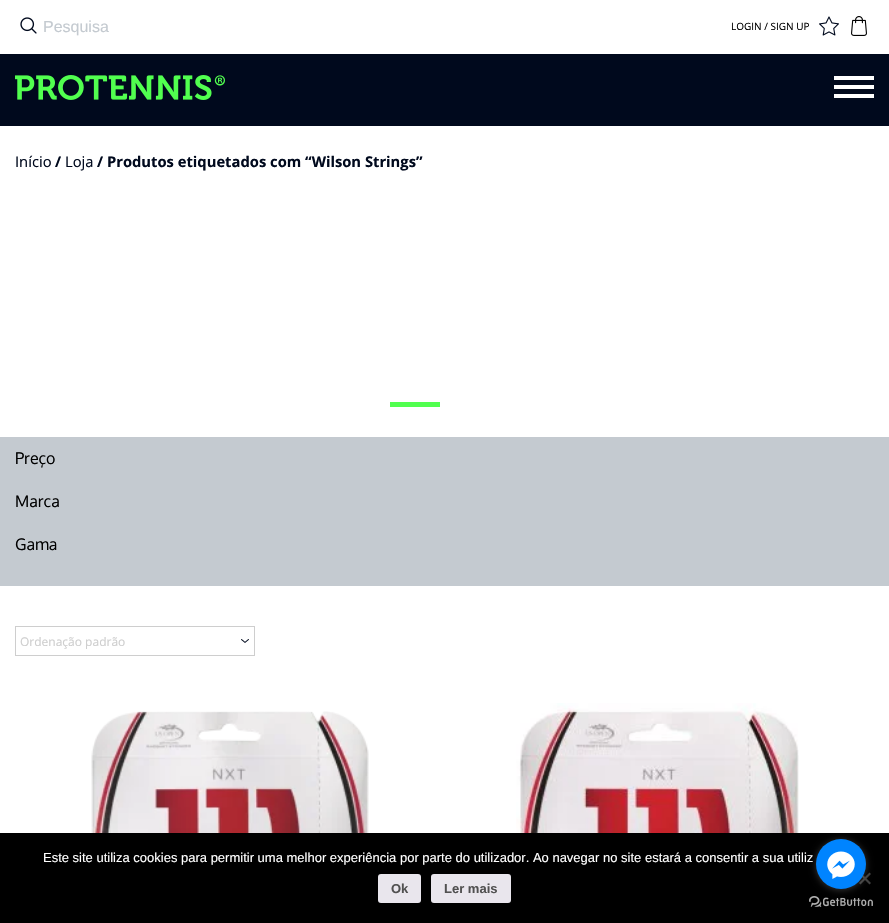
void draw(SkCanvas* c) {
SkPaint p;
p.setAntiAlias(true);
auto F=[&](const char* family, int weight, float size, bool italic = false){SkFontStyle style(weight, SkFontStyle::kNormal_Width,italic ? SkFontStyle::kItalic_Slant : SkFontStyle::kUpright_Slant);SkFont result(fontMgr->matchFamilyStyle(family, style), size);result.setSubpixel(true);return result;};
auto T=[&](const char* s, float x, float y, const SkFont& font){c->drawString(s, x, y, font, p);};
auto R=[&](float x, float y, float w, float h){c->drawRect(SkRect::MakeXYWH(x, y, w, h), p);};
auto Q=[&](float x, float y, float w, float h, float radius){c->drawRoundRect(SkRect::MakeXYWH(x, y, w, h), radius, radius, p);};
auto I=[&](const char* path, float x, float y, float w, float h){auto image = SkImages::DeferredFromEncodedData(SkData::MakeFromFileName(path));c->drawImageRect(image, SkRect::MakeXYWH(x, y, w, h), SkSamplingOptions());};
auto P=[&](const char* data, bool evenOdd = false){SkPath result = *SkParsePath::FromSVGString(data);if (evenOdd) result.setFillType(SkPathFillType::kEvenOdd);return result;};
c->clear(0xffffffff);
I("1.png",20,17,17,17);
auto f1 = F("Liberation Sans",400,16);
p.setColor(0xffc4cad0);
T("Pesquisa",43,32,f1);
auto f2 = F("Open Sans",400,10);
p.setColor(0xff000000);
T("LOGIN / SIGN UP",731,30,f2);
I("2.png",819,16,20,20);
I("3.png",851,16,16,20);
p.setColor(0xff00091d);
R(0,54,889,72);
I("4.png",15,75,210,25);
p.setColor(0xffffffff);
R(834,76,40,4);
R(834,85,40,4);
R(834,94,40,4);
auto f3 = F("Open Sans",400,14.75);
p.setColor(0xff00091d);
T("Início",15,167,f3);
auto f4 = F("Open Sans",700,14.75);
T("/",55,167,f4);
T("Loja",65,167,f3);
T("/ Produtos etiquetados com “Wilson Strings”",97,167,f4);
p.setColor(0xff51ff4f);
R(390,402,50,5);
p.setColor(0xffc4cad0);
R(0,437,889,149);
auto f5 = F("Oxygen",400,16);
p.setColor(0xff000000);
T("Preço",15,464,f5);
T("Marca",15,507,f5);
T("Gama",15,550,f5);
I("5.png",241,639,8,4);
p.setStroke(true);
p.setStrokeWidth(1);
p.setColor(0xffcecece);
c->drawRect(SkRect::MakeXYWH(15.5,626.5,239,29),p);
auto f6 = F("Open Sans",400,12);
p.setStroke(false);
T("Ordenação padrão",20,646,f6);
I("6.png",91,711,278,122);
I("7.png",516,703,283,130);
p.setColor(0xff000000);
R(0,833,889,90);
auto f7 = F("Liberation Sans",400,13);
p.setColor(0xffffffff);
T("Este site utiliza cookies para permitir uma melhor experiência por parte do utilizador. Ao navegar no site estará a consentir a sua utiliz",43,862,f7);
p.setColor(0xff404040);
c->drawPath(P("M869.5 872.5l1.5 1.5l-10.5 10.5l-1.5-1.5z"),p);
c->drawPath(P("M859 874l1.5-1.5l10.5 10.5l-1.5 1.5z"),p);
p.setColor(0xffe9e6ed);
Q(378,874,43,29,3);
auto f8 = F("Liberation Sans",700,13);
p.setColor(0xff515151);
T("Ok",391,893,f8);
p.setColor(0xffe9e6ed);
Q(431,874,80,29,3);
p.setColor(0xff515151);
T("Ler mais",444,893,f8);
I("9.png",809,896,64,11);
p.setColor(0x66888888);
p.setMaskFilter(SkMaskFilter::MakeBlur(kNormal_SkBlurStyle, 3.5));
c->drawRoundRect(SkRect::MakeXYWH(816,840,50,50),25,25,p);
p.setMaskFilter(nullptr);
p.setColor(0xff0084ff);
c->drawCircle(841,864,25,p);
I("8.png",827,851,28,28);
}
